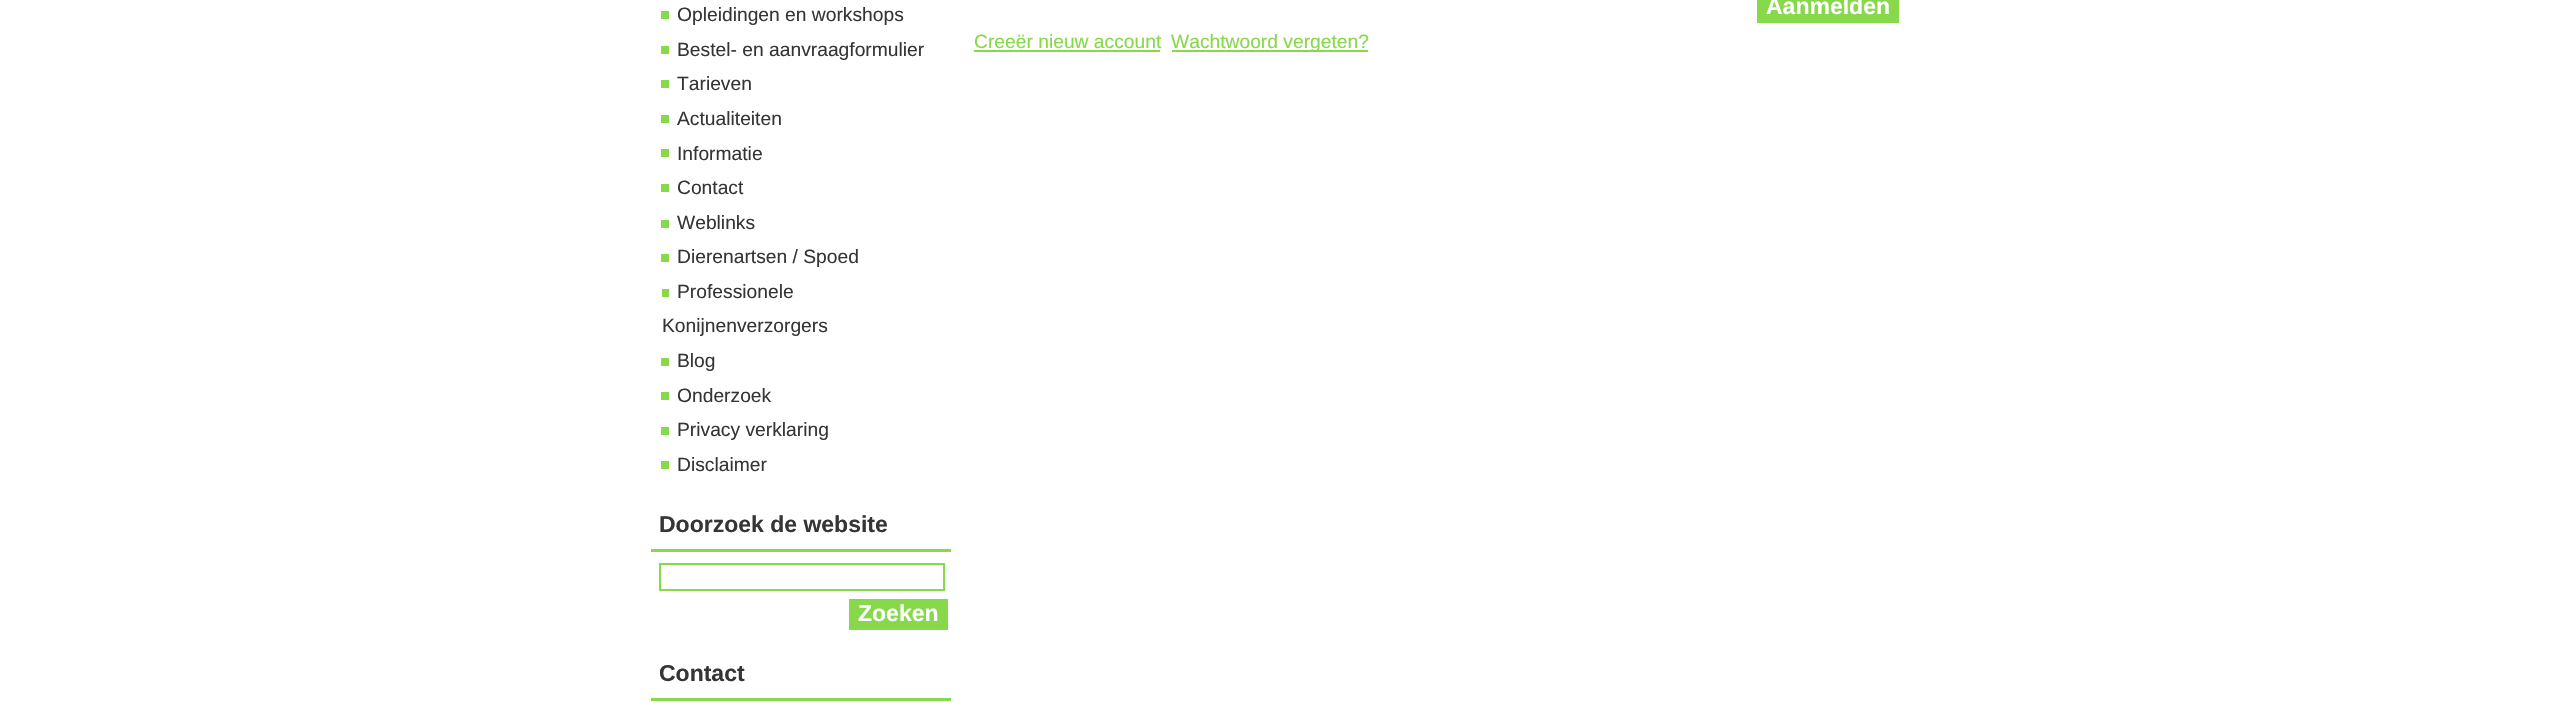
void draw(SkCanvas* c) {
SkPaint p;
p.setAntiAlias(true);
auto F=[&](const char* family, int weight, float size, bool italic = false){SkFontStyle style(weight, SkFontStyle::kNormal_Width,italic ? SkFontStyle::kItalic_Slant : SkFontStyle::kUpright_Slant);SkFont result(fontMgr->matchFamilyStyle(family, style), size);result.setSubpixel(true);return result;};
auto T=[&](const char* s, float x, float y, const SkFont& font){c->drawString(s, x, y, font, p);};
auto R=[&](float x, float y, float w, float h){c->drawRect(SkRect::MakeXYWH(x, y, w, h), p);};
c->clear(0xffffffff);
auto f1 = F("Liberation Sans",400,19.25);
p.setColor(0xff353535);
T("Opleidingen en workshops",677,21,f1);
p.setColor(0xff87d84b);
R(661,11,8,8);
p.setColor(0xff353535);
T("Bestel- en aanvraagformulier",677,56,f1);
p.setColor(0xff87d84b);
R(661,46,8,8);
p.setColor(0xff353535);
T("Tarieven",677,90,f1);
p.setColor(0xff87d84b);
R(661,80,8,8);
p.setColor(0xff353535);
T("Actualiteiten",677,125,f1);
p.setColor(0xff87d84b);
R(661,115,8,8);
p.setColor(0xff353535);
T("Informatie",677,160,f1);
p.setColor(0xff87d84b);
R(661,149,8,8);
p.setColor(0xff353535);
T("Contact",677,194,f1);
p.setColor(0xff87d84b);
R(661,184,8,8);
p.setColor(0xff353535);
T("Weblinks",677,229,f1);
p.setColor(0xff87d84b);
R(661,220,8,8);
p.setColor(0xff353535);
T("Dierenartsen / Spoed",677,263,f1);
p.setColor(0xff87d84b);
R(661,254,8,8);
p.setColor(0xff353535);
T("Professionele",677,298,f1);
p.setColor(0xff87d84b);
R(662,289,7,8);
p.setColor(0xff353535);
T("Konijnenverzorgers",662,332,f1);
T("Blog",677,367,f1);
p.setColor(0xff87d84b);
R(661,358,8,8);
p.setColor(0xff353535);
T("Onderzoek",677,402,f1);
p.setColor(0xff87d84b);
R(661,392,8,8);
p.setColor(0xff353535);
T("Privacy verklaring",677,436,f1);
p.setColor(0xff87d84b);
R(661,427,8,8);
p.setColor(0xff353535);
T("Disclaimer",677,471,f1);
p.setColor(0xff87d84b);
R(661,461,8,8);
R(651,549,300,3);
auto f2 = F("Liberation Sans",700,23);
p.setColor(0xff353535);
T("Doorzoek de website",659,532,f2);
p.setStroke(true);
p.setStrokeWidth(2);
p.setColor(0xff87d84b);
c->drawRect(SkRect::MakeXYWH(660,564,284,26),p);
p.setStroke(false);
R(849,599,99,31);
p.setColor(0xffffffff);
T("Zoeken",858,621,f2);
p.setColor(0xff87d84b);
R(651,698,300,3);
p.setColor(0xff353535);
T("Contact",659,681,f2);
p.setColor(0xff87d84b);
R(1757,0,142,23);
p.setColor(0xffffffff);
T("Aanmelden",1766,14,f2);
p.setColor(0xff87d84b);
T("Creeër nieuw account",974,48,f1);
R(974,50,186,2);
R(1172,50,196,2);
T("Wachtwoord vergeten?",1171,48,f1);
}
